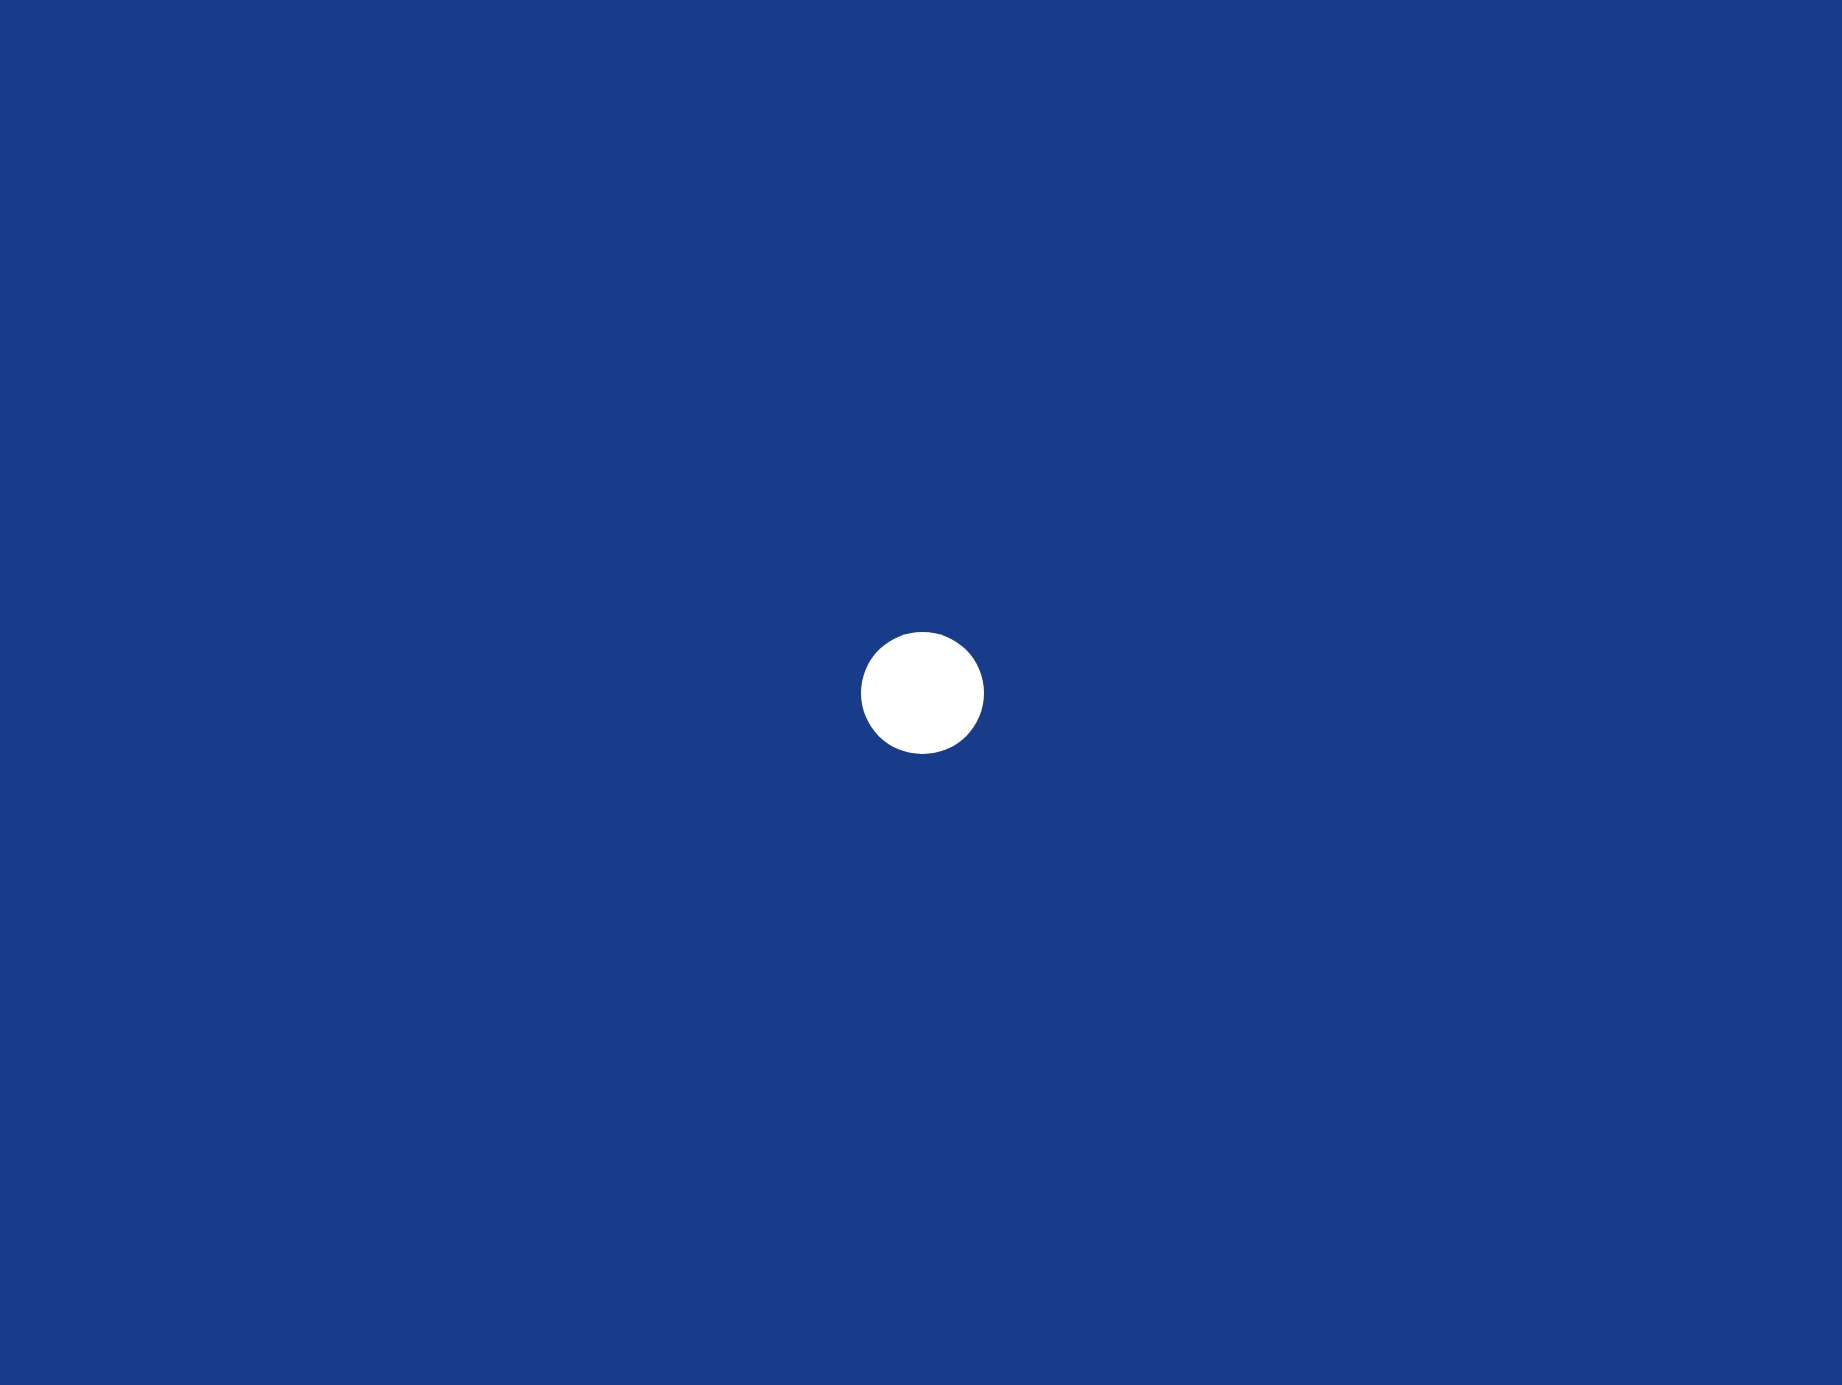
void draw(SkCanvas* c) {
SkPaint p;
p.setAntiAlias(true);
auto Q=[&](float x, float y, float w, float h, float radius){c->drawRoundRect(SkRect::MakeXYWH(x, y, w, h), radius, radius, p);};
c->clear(0xff173c89);
p.setColor(0xffffffff);
Q(861,632,123,122,61);
}
